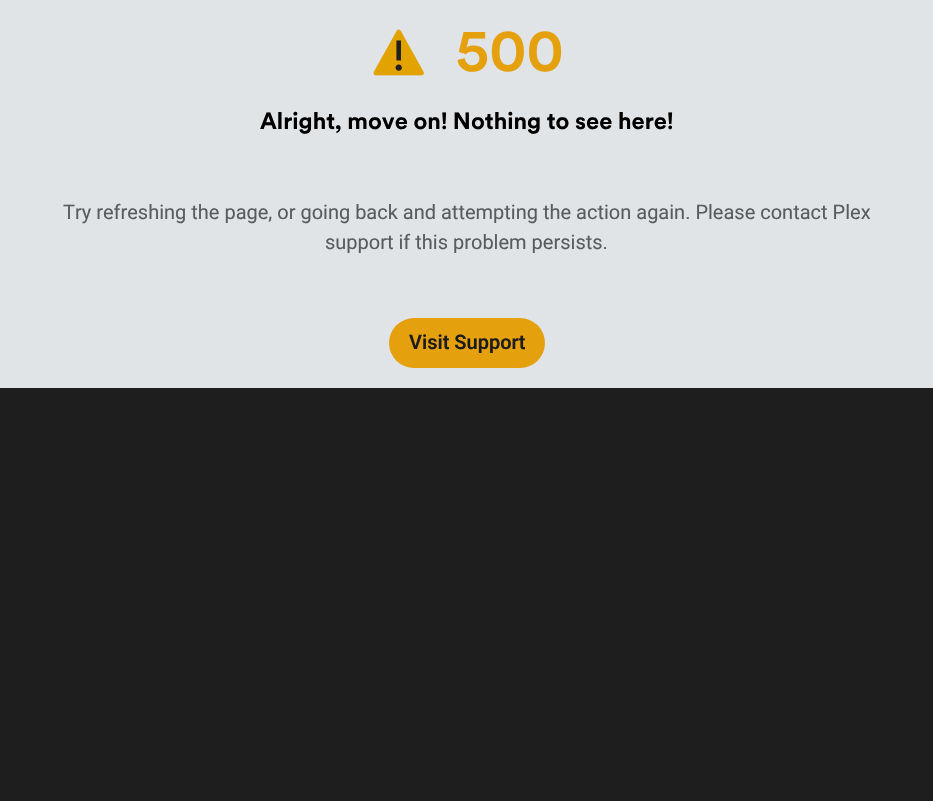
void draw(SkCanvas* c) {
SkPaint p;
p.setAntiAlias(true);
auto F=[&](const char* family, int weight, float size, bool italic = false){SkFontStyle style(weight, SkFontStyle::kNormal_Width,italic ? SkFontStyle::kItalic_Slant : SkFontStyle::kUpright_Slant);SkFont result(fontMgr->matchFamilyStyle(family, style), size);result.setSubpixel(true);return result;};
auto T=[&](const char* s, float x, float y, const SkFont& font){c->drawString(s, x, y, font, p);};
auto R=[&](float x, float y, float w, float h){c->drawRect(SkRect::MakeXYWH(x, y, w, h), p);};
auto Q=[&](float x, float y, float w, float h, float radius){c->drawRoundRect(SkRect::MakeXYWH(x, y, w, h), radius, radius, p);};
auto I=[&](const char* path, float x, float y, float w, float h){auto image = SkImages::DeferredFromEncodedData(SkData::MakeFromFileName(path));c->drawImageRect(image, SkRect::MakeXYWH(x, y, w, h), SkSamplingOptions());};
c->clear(0xff1e1e1e);
p.setColor(0xffe0e4e7);
R(0,0,933,388);
I("1.png",373,29,51,47);
auto f1 = F("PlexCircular",700,55);
p.setColor(0xffe5a00d);
T("500",456,71,f1);
auto f2 = F("PlexCircular",700,23.4);
p.setColor(0xff000000);
T("Alright, move on! Nothing to see here!",260,129,f2);
auto f3 = F("Roboto",400,20);
p.setColor(0xff5a5b5c);
T("Try refreshing the page, or going back and attempting the action again. Please contact Plex",63,219,f3);
T("support if this problem persists.",325,249,f3);
p.setColor(0xffe5a00d);
Q(389,318,156,50,25);
auto f4 = F("Roboto",600,20);
p.setColor(0xff1c1c1c);
T("Visit Support",409,349,f4);
}
